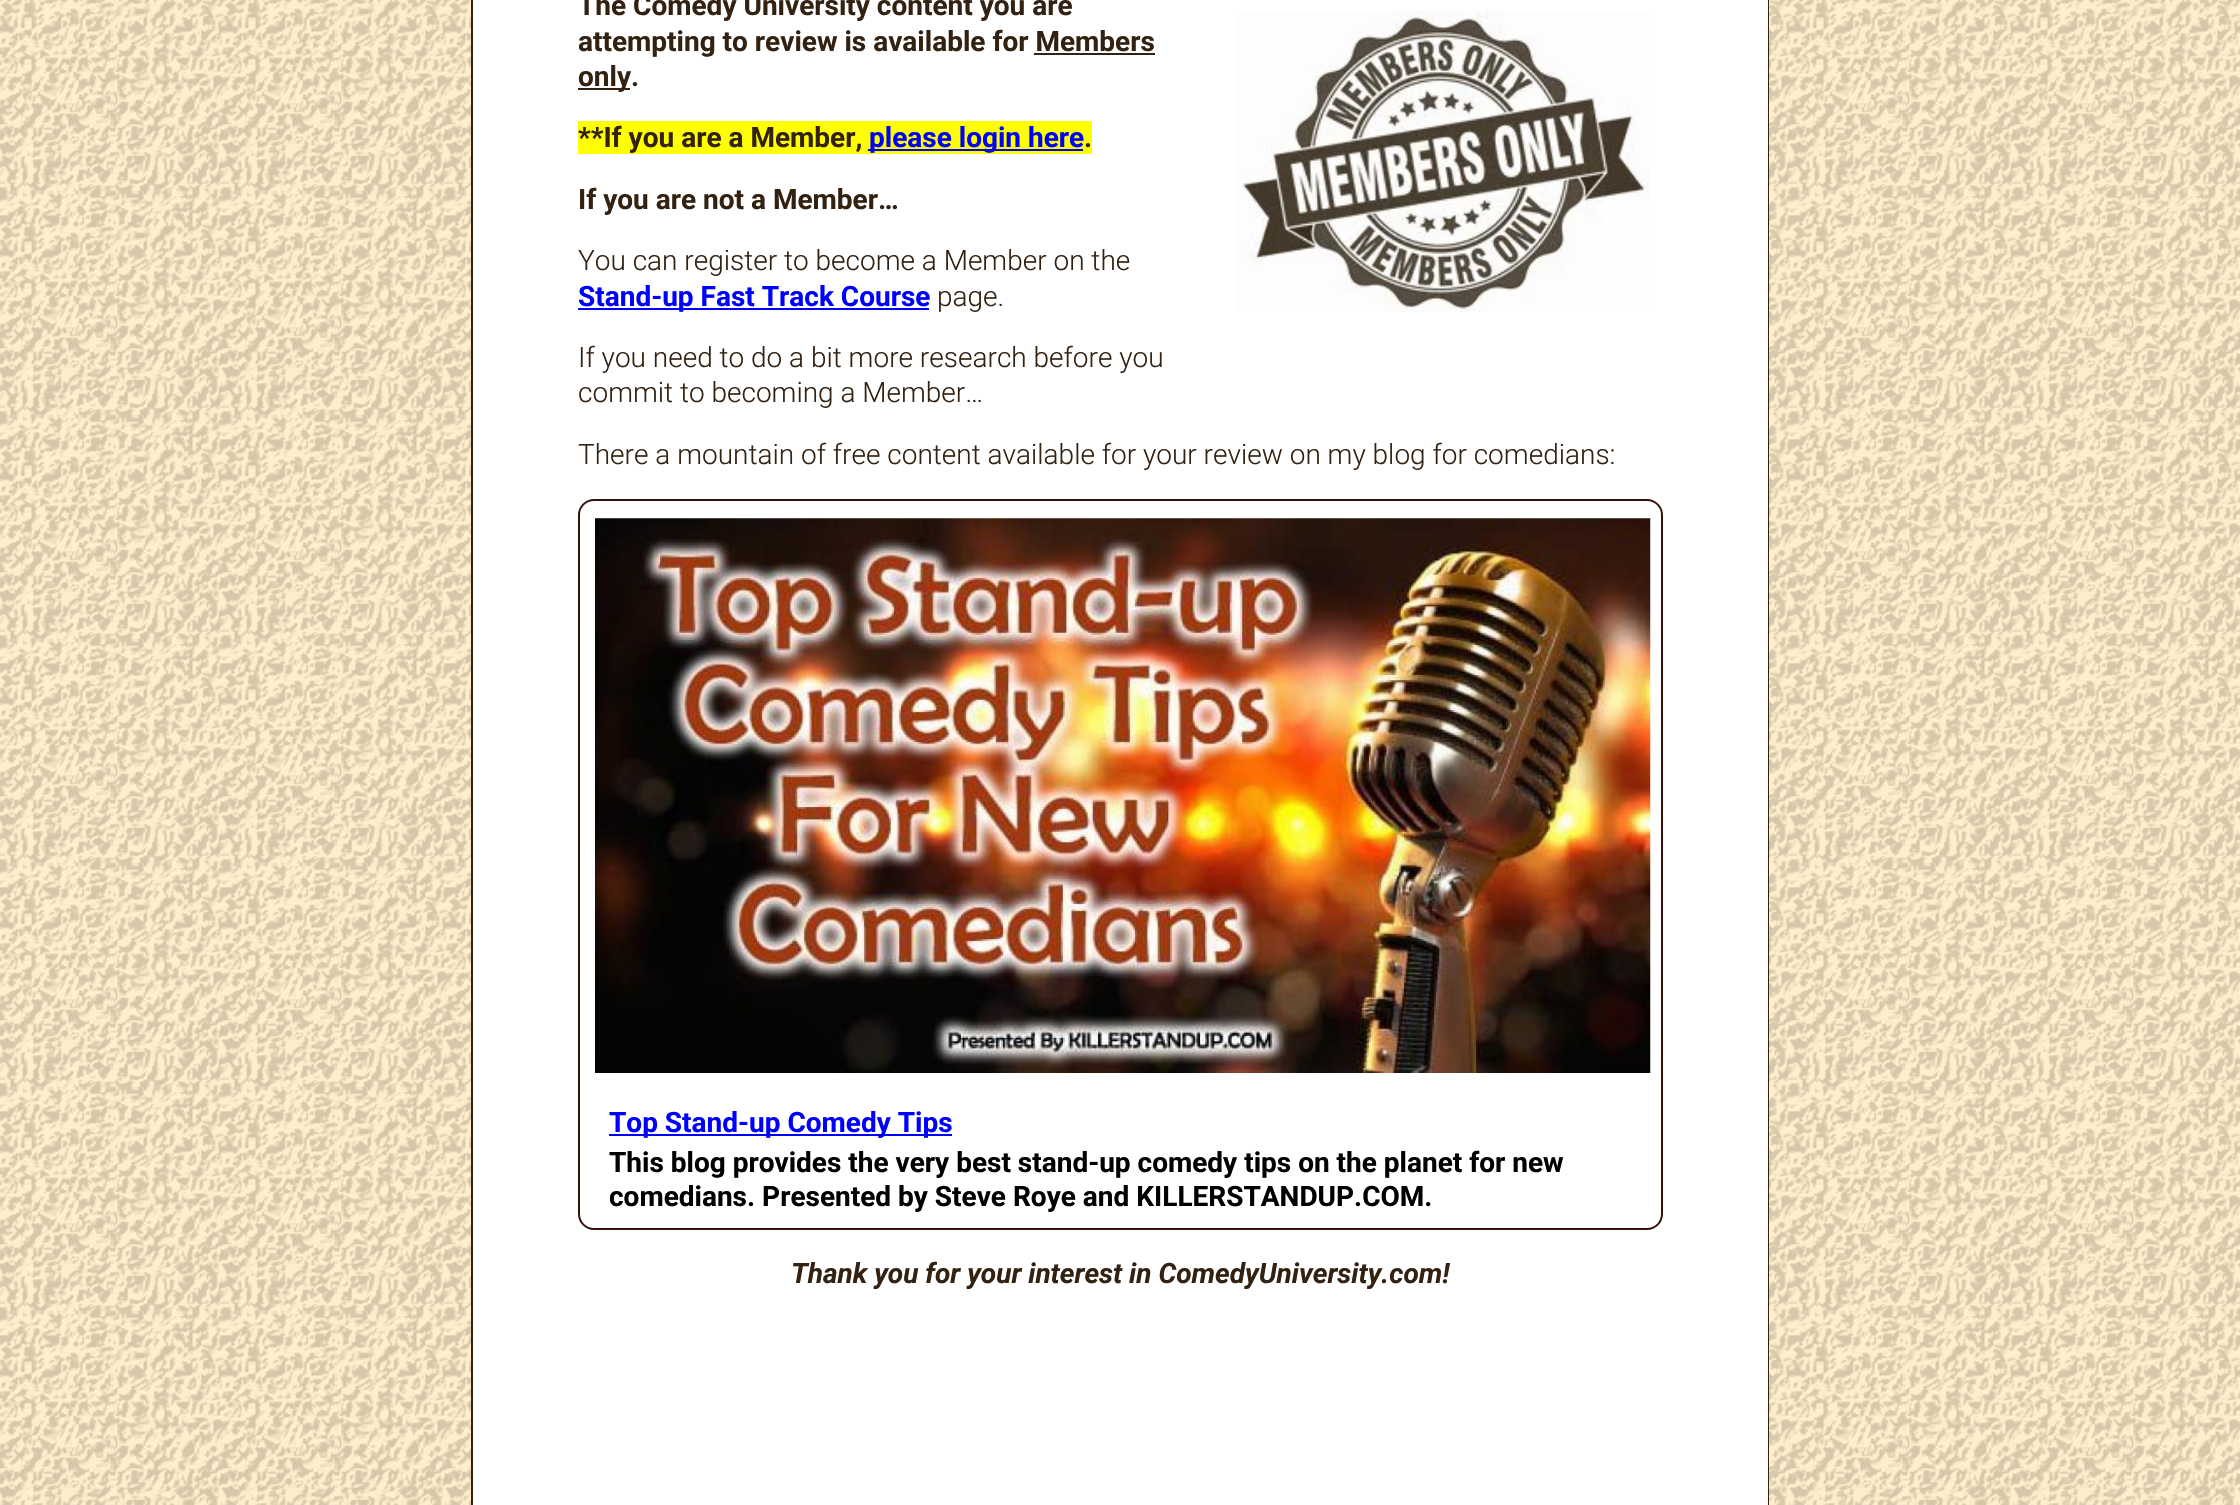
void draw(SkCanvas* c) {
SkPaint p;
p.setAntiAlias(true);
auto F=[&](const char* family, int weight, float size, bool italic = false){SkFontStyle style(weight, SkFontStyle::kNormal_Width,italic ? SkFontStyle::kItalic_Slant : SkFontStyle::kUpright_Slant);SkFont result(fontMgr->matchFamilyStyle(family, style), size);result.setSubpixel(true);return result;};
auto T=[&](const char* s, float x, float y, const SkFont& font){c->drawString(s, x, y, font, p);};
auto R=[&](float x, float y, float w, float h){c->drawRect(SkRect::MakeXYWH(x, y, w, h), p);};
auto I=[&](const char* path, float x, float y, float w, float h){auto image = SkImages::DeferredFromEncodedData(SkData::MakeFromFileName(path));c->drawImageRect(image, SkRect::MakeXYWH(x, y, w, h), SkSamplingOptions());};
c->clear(0xffffeecc);
I("1.png",0,0,2240,1505);
p.setStroke(true);
p.setStrokeWidth(2);
p.setColor(0xff332111);
c->drawRect(SkRect::MakeXYWH(472,-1,1296,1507),p);
p.setStroke(false);
p.setColor(0xffffffff);
R(473,0,1295,1505);
auto f1 = F("Roboto",700,28);
p.setColor(0xff332111);
T("The Comedy University content you are",578,15,f1);
I("2.png",1235,11,415,301);
T("attempting to review is available for Members",578,51,f1);
R(578,88,52,2);
T("only.",578,86,f1);
R(1034,53,121,2);
p.setColor(0xffffff00);
R(578,121,514,33);
p.setColor(0xff332111);
T("**If you are a Member,",578,147,f1);
p.setColor(0xff0000ff);
R(868,149,215,2);
T("please login here",869,147,f1);
p.setColor(0xff332111);
T(".",1084,147,f1);
T("If you are not a Member…",578,209,f1);
auto f2 = F("Roboto",300,28);
T("You can register to become a Member on the",578,270,f2);
p.setColor(0xff0000ff);
R(578,308,351,2);
T("Stand-up Fast Track Course",578,306,f1);
p.setColor(0xff332111);
T("page.",937,306,f2);
T("If you need to do a bit more research before you",578,367,f2);
T("commit to becoming a Member…",578,402,f2);
T("There a mountain of free content available for your review on my blog for comedians:",578,464,f2);
p.setStroke(true);
p.setColor(0xff380f0b);
c->drawRoundRect(SkRect::MakeXYWH(579,500,1083,729),15,15,p);
I("3.png",595,518,1056,555);
p.setStroke(false);
p.setColor(0xff0000ff);
R(609,1134,343,2);
T("Top Stand-up Comedy Tips",609,1132,f1);
p.setColor(0xff000000);
T("This blog provides the very best stand-up comedy tips on the planet for new",609,1172,f1);
T("comedians. Presented by Steve Roye and KILLERSTANDUP.COM.",609,1206,f1);
auto f3 = F("Roboto",700,28,true);
p.setColor(0xff332111);
T("Thank you for your interest in ComedyUniversity.com!",791,1283,f3);
}
